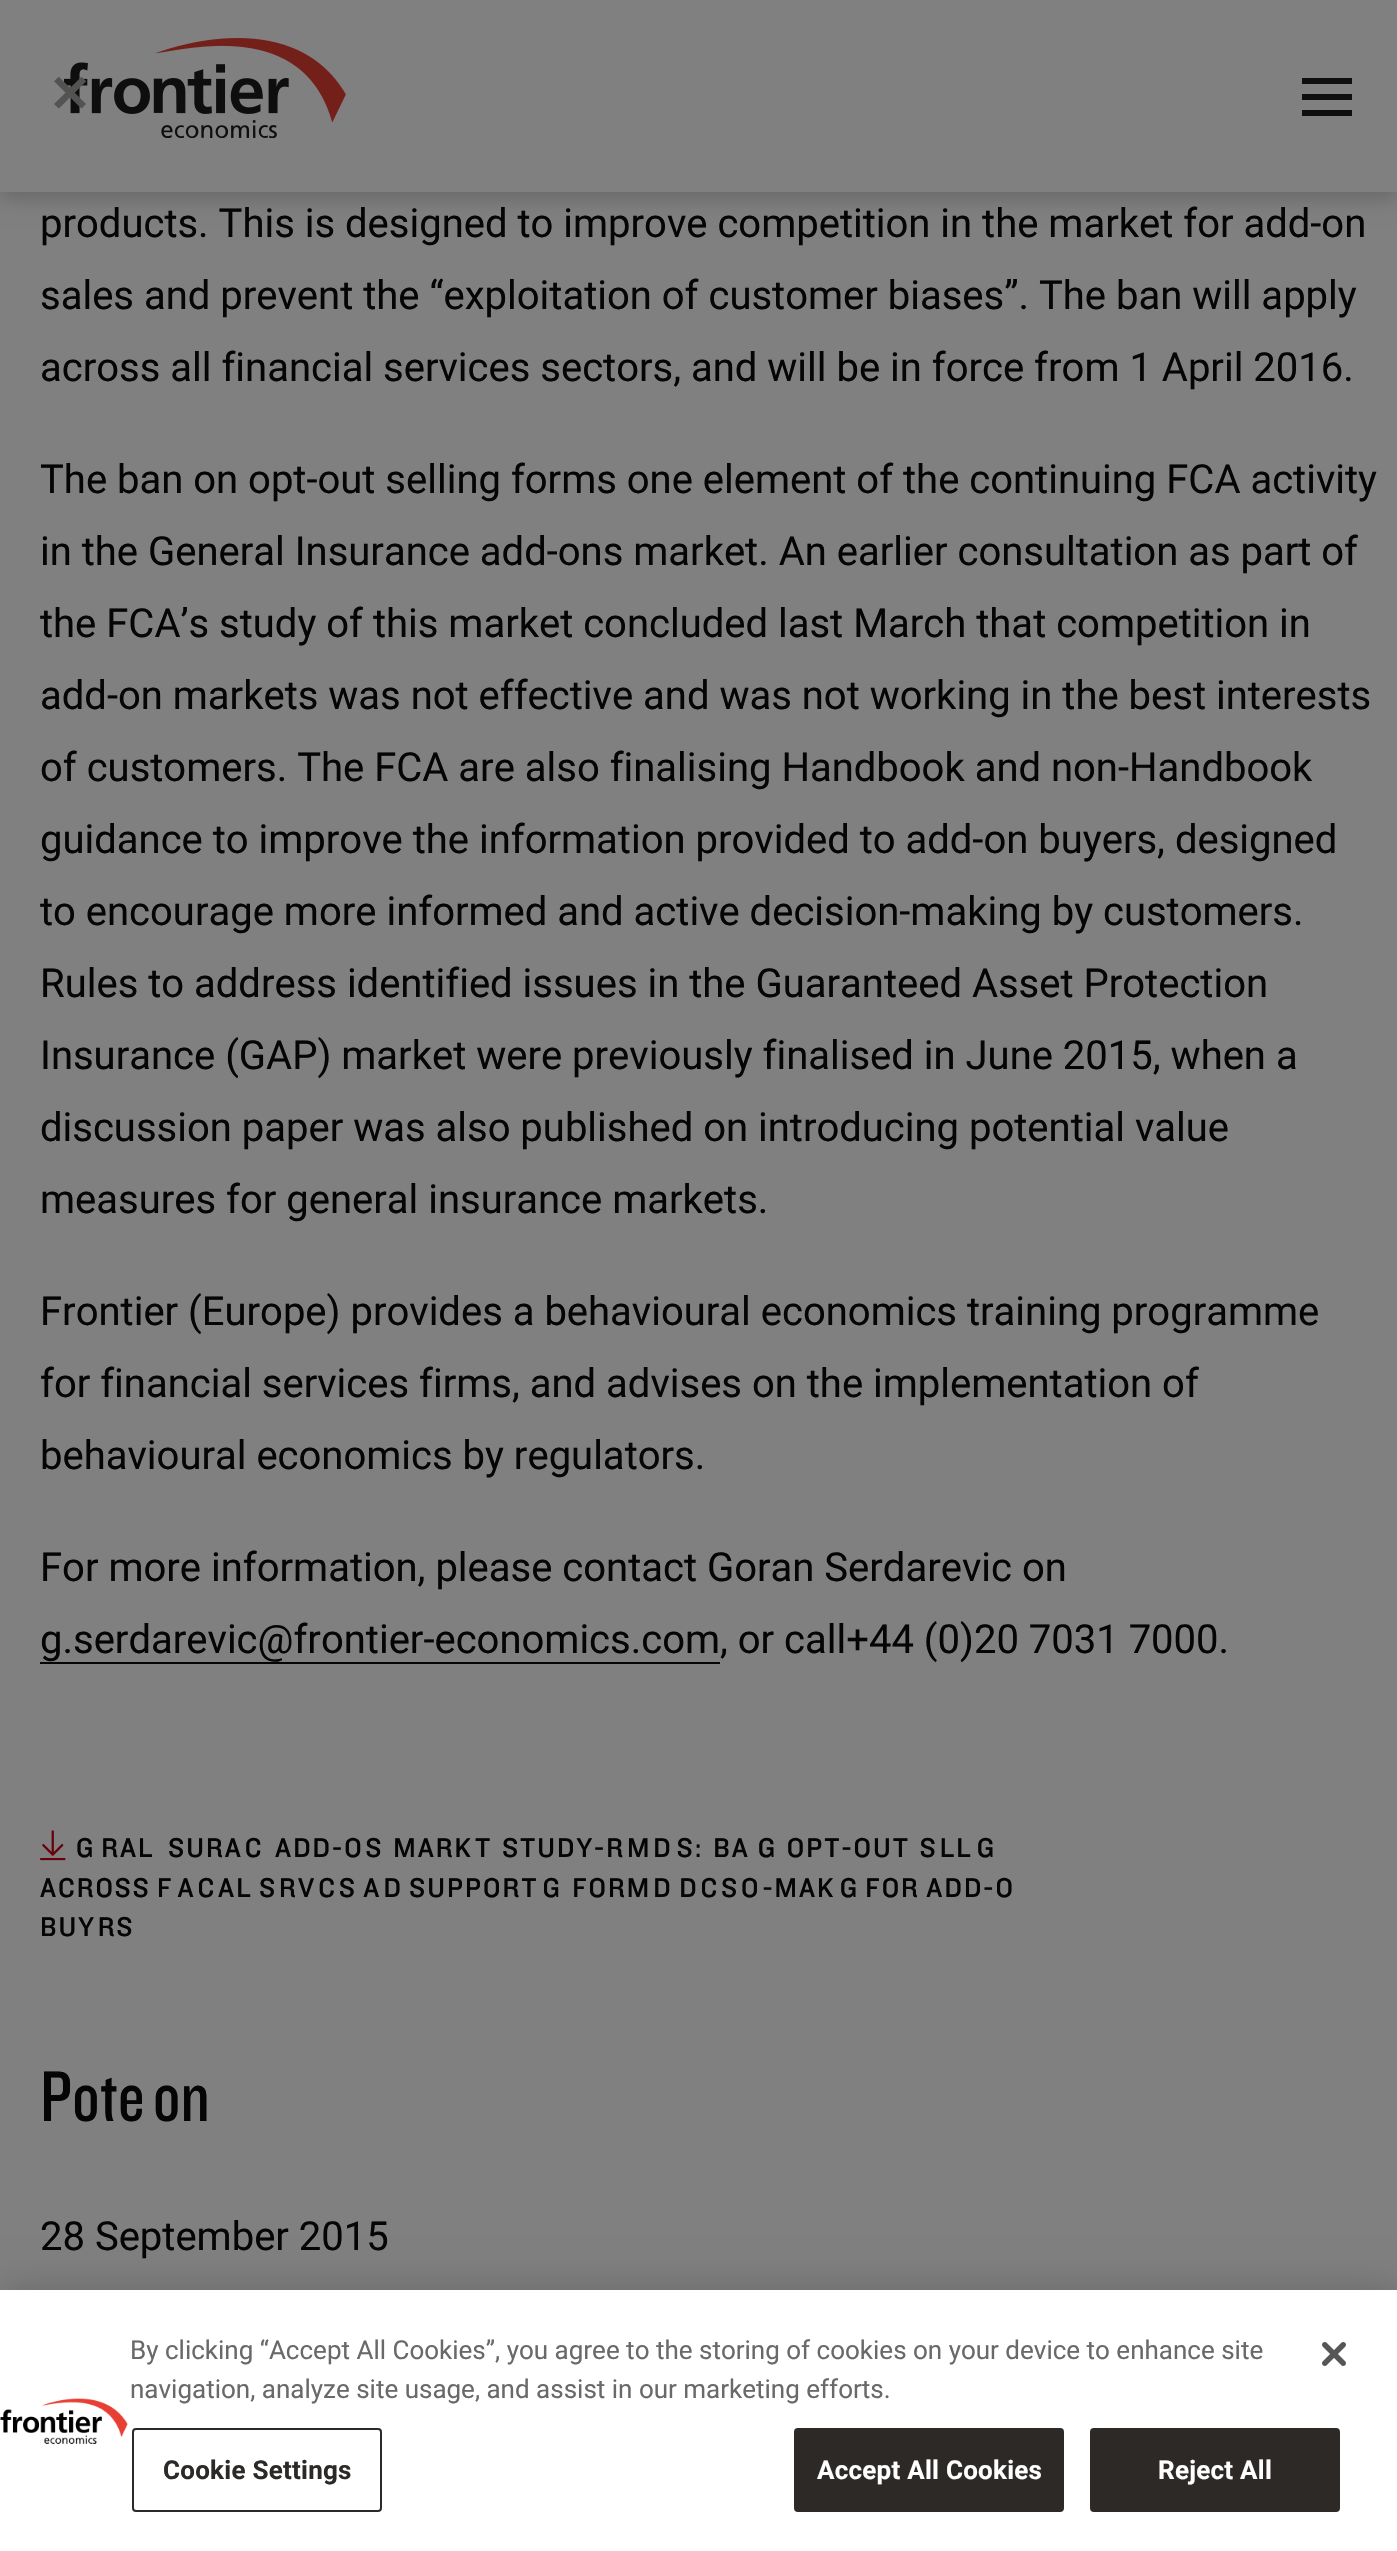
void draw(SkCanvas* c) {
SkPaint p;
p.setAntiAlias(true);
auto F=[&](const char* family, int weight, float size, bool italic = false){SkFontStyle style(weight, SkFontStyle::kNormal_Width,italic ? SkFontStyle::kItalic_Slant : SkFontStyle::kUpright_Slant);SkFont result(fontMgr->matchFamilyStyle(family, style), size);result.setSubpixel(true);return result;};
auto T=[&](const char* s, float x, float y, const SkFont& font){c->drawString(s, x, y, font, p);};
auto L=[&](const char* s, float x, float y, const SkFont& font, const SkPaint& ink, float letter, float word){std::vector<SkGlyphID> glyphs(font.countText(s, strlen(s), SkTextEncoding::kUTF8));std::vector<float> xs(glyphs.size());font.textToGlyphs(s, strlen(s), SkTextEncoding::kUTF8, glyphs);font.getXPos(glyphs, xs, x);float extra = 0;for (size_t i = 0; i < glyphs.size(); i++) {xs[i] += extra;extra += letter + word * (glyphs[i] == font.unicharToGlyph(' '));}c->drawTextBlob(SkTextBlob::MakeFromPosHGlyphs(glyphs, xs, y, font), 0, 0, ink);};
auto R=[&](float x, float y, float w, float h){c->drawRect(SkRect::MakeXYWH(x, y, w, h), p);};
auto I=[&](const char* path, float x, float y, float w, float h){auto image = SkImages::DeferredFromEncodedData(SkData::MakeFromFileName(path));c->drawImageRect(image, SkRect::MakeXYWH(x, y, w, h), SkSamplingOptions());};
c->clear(0xff808080);
p.setColor(0x33000000);
p.setMaskFilter(SkMaskFilter::MakeBlur(kNormal_SkBlurStyle, 10));
c->drawRect(SkRect::MakeXYWH(0,6,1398,192),p);
p.setMaskFilter(nullptr);
p.setColor(0xff808080);
R(0,0,1397,192);
I("1.png",64,38,282,100);
auto f1 = F("DejaVu Sans",700,51);
p.setColor(0xff535352);
T("✕",48,112,f1);
p.setColor(0xff0f0f0e);
R(1302,78,50,6);
R(1302,94,50,6);
R(1302,110,50,6);
auto f2 = F("Roboto",400,40);
p.setColor(0xff050505);
T("products. This is designed to improve competition in the market for add-on",40,237,f2);
T("sales and prevent the “exploitation of customer biases”. The ban will apply",40,309,f2);
T("across all financial services sectors, and will be in force from 1 April 2016.",40,381,f2);
T("The ban on opt-out selling forms one element of the continuing FCA activity",40,493,f2);
T("in the General Insurance add-ons market. An earlier consultation as part of",40,565,f2);
T("the FCA’s study of this market concluded last March that competition in",40,637,f2);
T("add-on markets was not effective and was not working in the best interests",40,709,f2);
T("of customers. The FCA are also finalising Handbook and non-Handbook",40,781,f2);
T("guidance to improve the information provided to add-on buyers, designed",40,853,f2);
T("to encourage more informed and active decision-making by customers.",40,925,f2);
T("Rules to address identified issues in the Guaranteed Asset Protection",40,997,f2);
T("Insurance (GAP) market were previously finalised in June 2015, when a",40,1069,f2);
T("discussion paper was also published on introducing potential value",40,1141,f2);
T("measures for general insurance markets.",40,1213,f2);
T("Frontier (Europe) provides a behavioural economics training programme",40,1325,f2);
T("for financial services firms, and advises on the implementation of",40,1397,f2);
T("behavioural economics by regulators.",40,1469,f2);
T("For more information, please contact Goran Serdarevic on",40,1581,f2);
T("g.serdarevic@frontier-economics.com",40,1653,f2);
R(40,1662,680,2);
T(", or call+44 (0)20 7031 7000.",720,1653,f2);
I("2.png",40,1830,26,31);
auto f3 = F("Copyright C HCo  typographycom",300,28);
L("GENERAL INSURANCE ADD-ONS MARKET STUDY-REMEDIES: BANNING OPT-OUT SELLING",76,1857,f3,p,2,1.5);
L("ACROSS FINANCIAL SERVICES AND SUPPORTING INFORMED DECISION-MAKING FOR ADD-ON",40,1897,f3,p,2,-1.75);
L("BUYERS",40,1936,f3,p,2,0);
auto f4 = F("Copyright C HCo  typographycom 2",300,74.5);
L("Posted on",40,2121,f4,p,0,-4);
T("28 September 2015",40,2250,f2);
p.setColor(0x33000000);
p.setMaskFilter(SkMaskFilter::MakeBlur(kNormal_SkBlurStyle, 18));
c->drawRect(SkRect::MakeXYWH(0,2290,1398,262),p);
p.setMaskFilter(nullptr);
p.setColor(0xffffffff);
R(0,2290,1397,261);
auto f5 = F("Roboto",400,26);
p.setColor(0xff696969);
T("By clicking “Accept All Cookies”, you agree to the storing of cookies on your device to enhance site",130,2359,f5);
T("navigation, analyze site usage, and assist in our marketing efforts.",130,2398,f5);
I("3.png",0,2398,128,46);
p.setStroke(true);
p.setStrokeWidth(2);
p.setColor(0xff2d2926);
c->drawRoundRect(SkRect::MakeXYWH(133,2429,248,82),3,3,p);
auto f6 = F("Roboto",700,26);
p.setStroke(false);
L("Cookie Settings",163,2479,f6,p,.25,0);
c->drawRoundRect(SkRect::MakeXYWH(795,2429,268,82),3,3,p);
p.setStroke(true);
c->drawRoundRect(SkRect::MakeXYWH(795,2429,268,82),3,3,p);
p.setStroke(false);
p.setColor(0xffffffff);
L("Accept All Cookies",817,2479,f6,p,.25,0);
p.setColor(0xff2d2926);
c->drawRoundRect(SkRect::MakeXYWH(1091,2429,248,82),3,3,p);
p.setStroke(true);
c->drawRoundRect(SkRect::MakeXYWH(1091,2429,248,82),3,3,p);
p.setStroke(false);
p.setColor(0xffffffff);
L("Reject All",1158,2479,f6,p,.25,0);
I("4.png",1322,2342,24,24);
}
